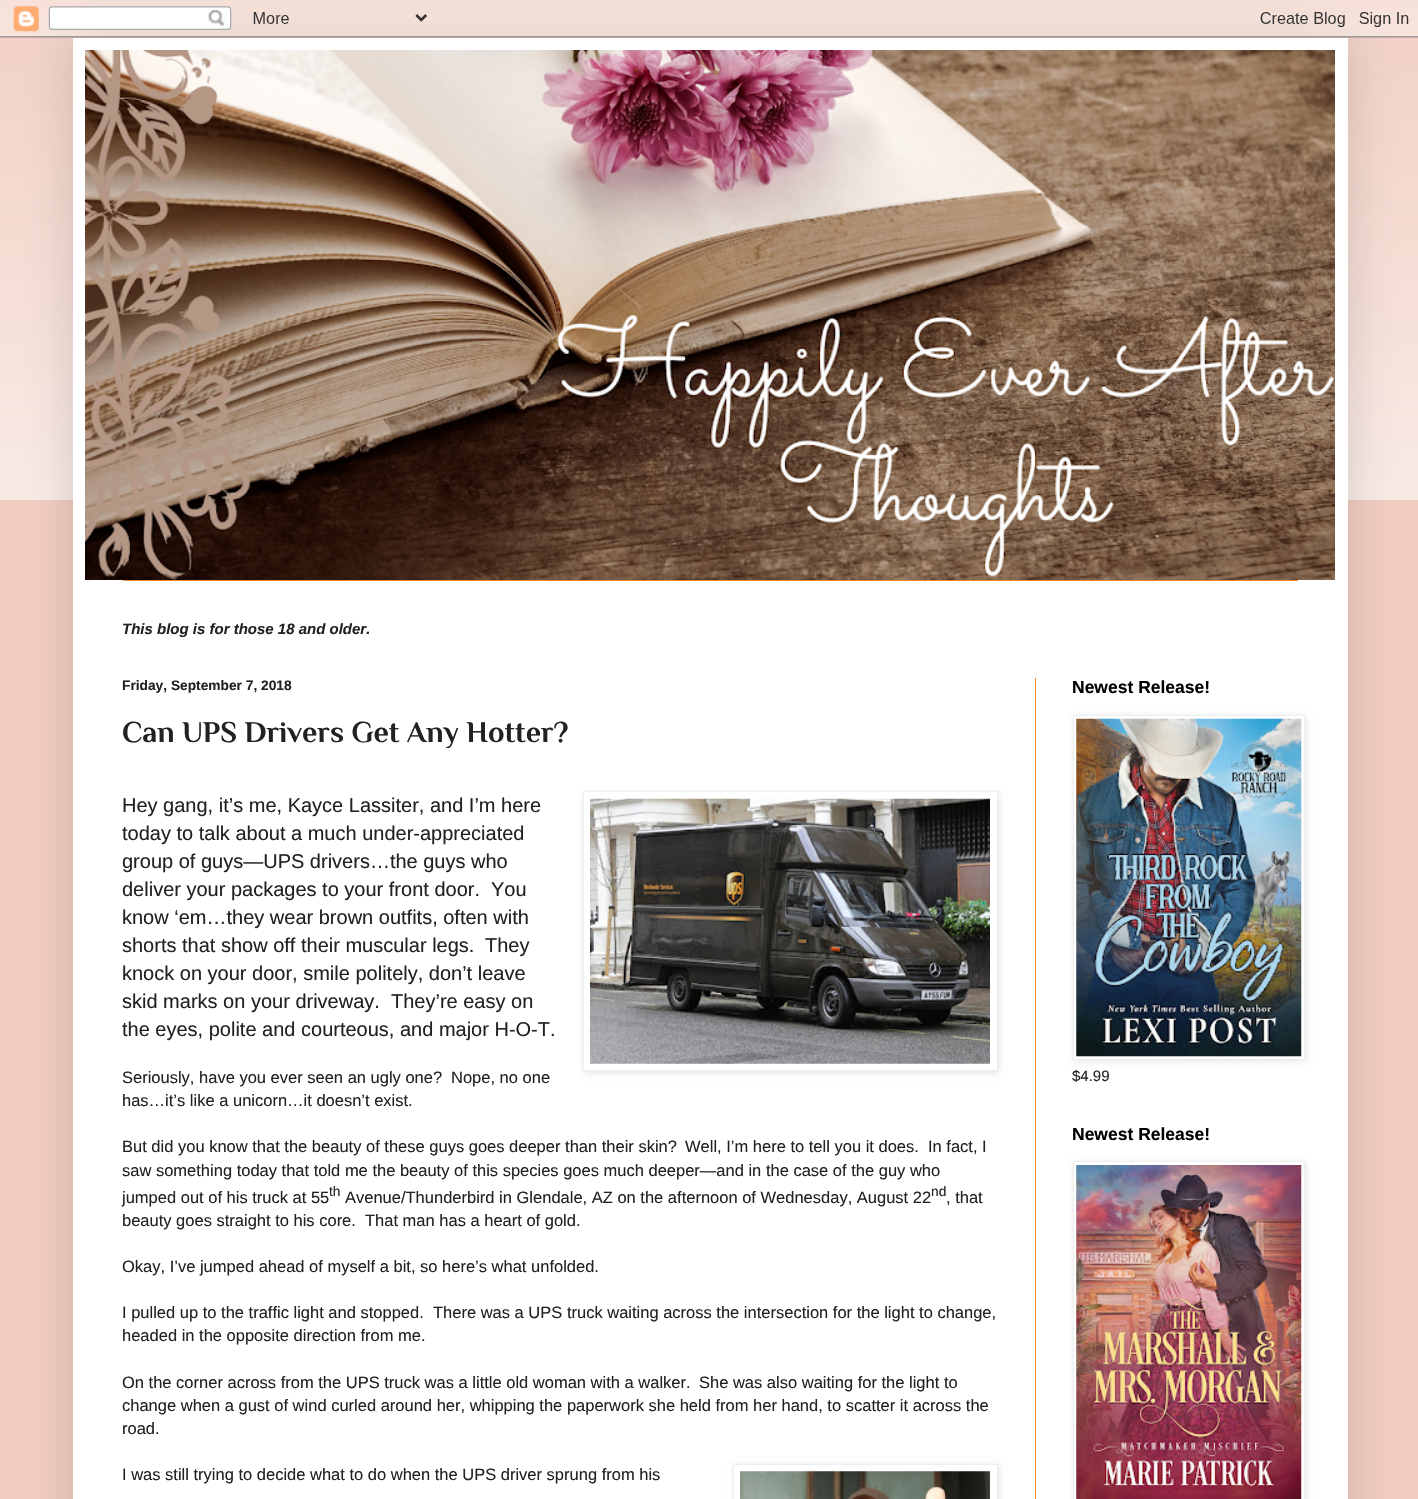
void draw(SkCanvas* c) {
SkPaint p;
p.setAntiAlias(true);
auto F=[&](const char* family, int weight, float size, bool italic = false){SkFontStyle style(weight, SkFontStyle::kNormal_Width,italic ? SkFontStyle::kItalic_Slant : SkFontStyle::kUpright_Slant);SkFont result(fontMgr->matchFamilyStyle(family, style), size);result.setSubpixel(true);return result;};
auto T=[&](const char* s, float x, float y, const SkFont& font){c->drawString(s, x, y, font, p);};
auto R=[&](float x, float y, float w, float h){c->drawRect(SkRect::MakeXYWH(x, y, w, h), p);};
auto I=[&](const char* path, float x, float y, float w, float h){auto image = SkImages::DeferredFromEncodedData(SkData::MakeFromFileName(path));c->drawImageRect(image, SkRect::MakeXYWH(x, y, w, h), SkSamplingOptions());};
auto P=[&](const char* data, bool evenOdd = false){SkPath result = *SkParsePath::FromSVGString(data);if (evenOdd) result.setFillType(SkPathFillType::kEvenOdd);return result;};
c->clear(0xfff2cec1);
I("2.png",0,13,1418,487);
p.setColor(0x26000000);
p.setMaskFilter(SkMaskFilter::MakeBlur(kNormal_SkBlurStyle, 25));
c->drawRect(SkRect::MakeXYWH(73,38,1275,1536),p);
p.setMaskFilter(nullptr);
I("1.png",0,0,1418,38);
p.setColor(0xffffffff);
R(73,38,1275,1461);
I("3.png",85,50,1250,530);
p.setColor(0xffff8632);
R(123,580,1175,1);
auto f1 = F("Liberation Sans",700,15,true);
p.setColor(0xff222222);
T("This blog is for those 18 and older.",122,634,f1);
p.setColor(0xffff8632);
R(1035,678,1,821);
auto f2 = F("Liberation Sans",700,13.75);
p.setColor(0xff222222);
T("Friday, September 7, 2018",122,690,f2);
auto f3 = F("Philosopher",700,30);
T("Can UPS Drivers Get Any Hotter?",122,742,f3);
auto f4 = F("Liberation Sans",400,20);
T("Hey gang, it’s me, Kayce Lassiter, and I’m here",122,812,f4);
T("today to talk about a much under-appreciated",122,840,f4);
T("group of guys—UPS drivers…the guys who",122,868,f4);
T("deliver your packages to your front door.",122,896,f4);
T("You",491,896,f4);
T("know ‘em…they wear brown outfits, often with",122,924,f4);
T("shorts that show off their muscular legs.",122,952,f4);
T("They",485,952,f4);
T("knock on your door, smile politely, don’t leave",122,980,f4);
T("skid marks on your driveway.",122,1008,f4);
T("They’re easy on",391,1008,f4);
T("the eyes, polite and courteous, and major H-O-T.",122,1036,f4);
p.setColor(0x1a000000);
p.setMaskFilter(SkMaskFilter::MakeBlur(kNormal_SkBlurStyle, 3));
c->drawRect(SkRect::MakeXYWH(584,793,415,280),p);
p.setMaskFilter(nullptr);
p.setColor(0xffffffff);
c->drawRect(SkRect::MakeXYWH(583.5,791.5,414,279),p);
p.setStroke(true);
p.setStrokeWidth(1);
p.setColor(0xffeeeeee);
c->drawRect(SkRect::MakeXYWH(583.5,791.5,414,279),p);
I("4.png",590,798,400,266);
auto f5 = F("Liberation Sans",400,16.5);
p.setStroke(false);
p.setColor(0xff222222);
T("Seriously, have you ever seen an ugly one?",122,1083,f5);
T("Nope, no one",451,1083,f5);
T("has…it’s like a unicorn…it doesn’t exist.",122,1106,f5);
T("But did you know that the beauty of these guys goes deeper than their skin?",122,1152,f5);
T("Well, I’m here to tell you it does.",685,1152,f5);
T("In fact, I",928,1152,f5);
T("saw something today that told me the beauty of this species goes much deeper—and in the case of the guy who",122,1176,f5);
T("jumped out of his truck at 55",122,1203,f5);
auto f6 = F("Liberation Sans",400,13.75);
T("th",329,1196,f6);
T("Avenue/Thunderbird in Glendale, AZ on the afternoon of Wednesday, August 22",345,1203,f5);
T("nd",931,1196,f6);
T(", that",946,1203,f5);
T("beauty goes straight to his core.",122,1226,f5);
T("That man has a heart of gold.",365,1226,f5);
T("Okay, I’ve jumped ahead of myself a bit, so here’s what unfolded.",122,1272,f5);
T("I pulled up to the traffic light and stopped.",122,1318,f5);
T("There was a UPS truck waiting across the intersection for the light to change,",433,1318,f5);
T("headed in the opposite direction from me.",122,1341,f5);
T("On the corner across from the UPS truck was a little old woman with a walker.",122,1388,f5);
T("She was also waiting for the light to",699,1388,f5);
T("change when a gust of wind curled around her, whipping the paperwork she held from her hand, to scatter it across the",122,1411,f5);
T("road.",122,1434,f5);
T("I was still trying to decide what to do when the UPS driver sprung from his",122,1480,f5);
p.setColor(0x1a000000);
p.setMaskFilter(SkMaskFilter::MakeBlur(kNormal_SkBlurStyle, 3));
c->drawRect(SkRect::MakeXYWH(734,1465,265,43),p);
p.setMaskFilter(nullptr);
p.setColor(0xffffffff);
c->drawRect(SkRect::MakeXYWH(733.5,1464.5,264,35),p);
p.setStroke(true);
p.setColor(0xffeeeeee);
c->drawRect(SkRect::MakeXYWH(733.5,1464.5,264,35),p);
I("5.png",740,1471,250,28);
auto f7 = F("Liberation Sans",700,17.5);
p.setStroke(false);
p.setColor(0xff000000);
T("Newest Release!",1072,693,f7);
c->save();
c->clipPath(P("M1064 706h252v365h-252zm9 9h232v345h-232z",true),true);
p.setColor(0x1a000000);
p.setMaskFilter(SkMaskFilter::MakeBlur(kNormal_SkBlurStyle, 3));
c->drawRect(SkRect::MakeXYWH(1074,716,232,345),p);
p.setMaskFilter(nullptr);
c->restore();
p.setStroke(true);
p.setColor(0xffeeeeee);
c->drawRect(SkRect::MakeXYWH(1073.5,715.5,231,344),p);
I("6.png",1076,718,226,339);
auto f8 = F("Liberation Sans",400,15);
p.setStroke(false);
p.setColor(0xff222222);
T("$4.99",1072,1081,f8);
p.setColor(0xff000000);
T("Newest Release!",1072,1140,f7);
p.setColor(0x1a000000);
p.setMaskFilter(SkMaskFilter::MakeBlur(kNormal_SkBlurStyle, 3));
c->drawRect(SkRect::MakeXYWH(1074,1163,232,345),p);
p.setMaskFilter(nullptr);
p.setColor(0xffffffff);
c->drawRect(SkRect::MakeXYWH(1073.5,1161.5,231,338),p);
p.setStroke(true);
p.setColor(0xffeeeeee);
c->drawRect(SkRect::MakeXYWH(1073.5,1161.5,231,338),p);
I("7.png",1076,1165,226,334);
}
